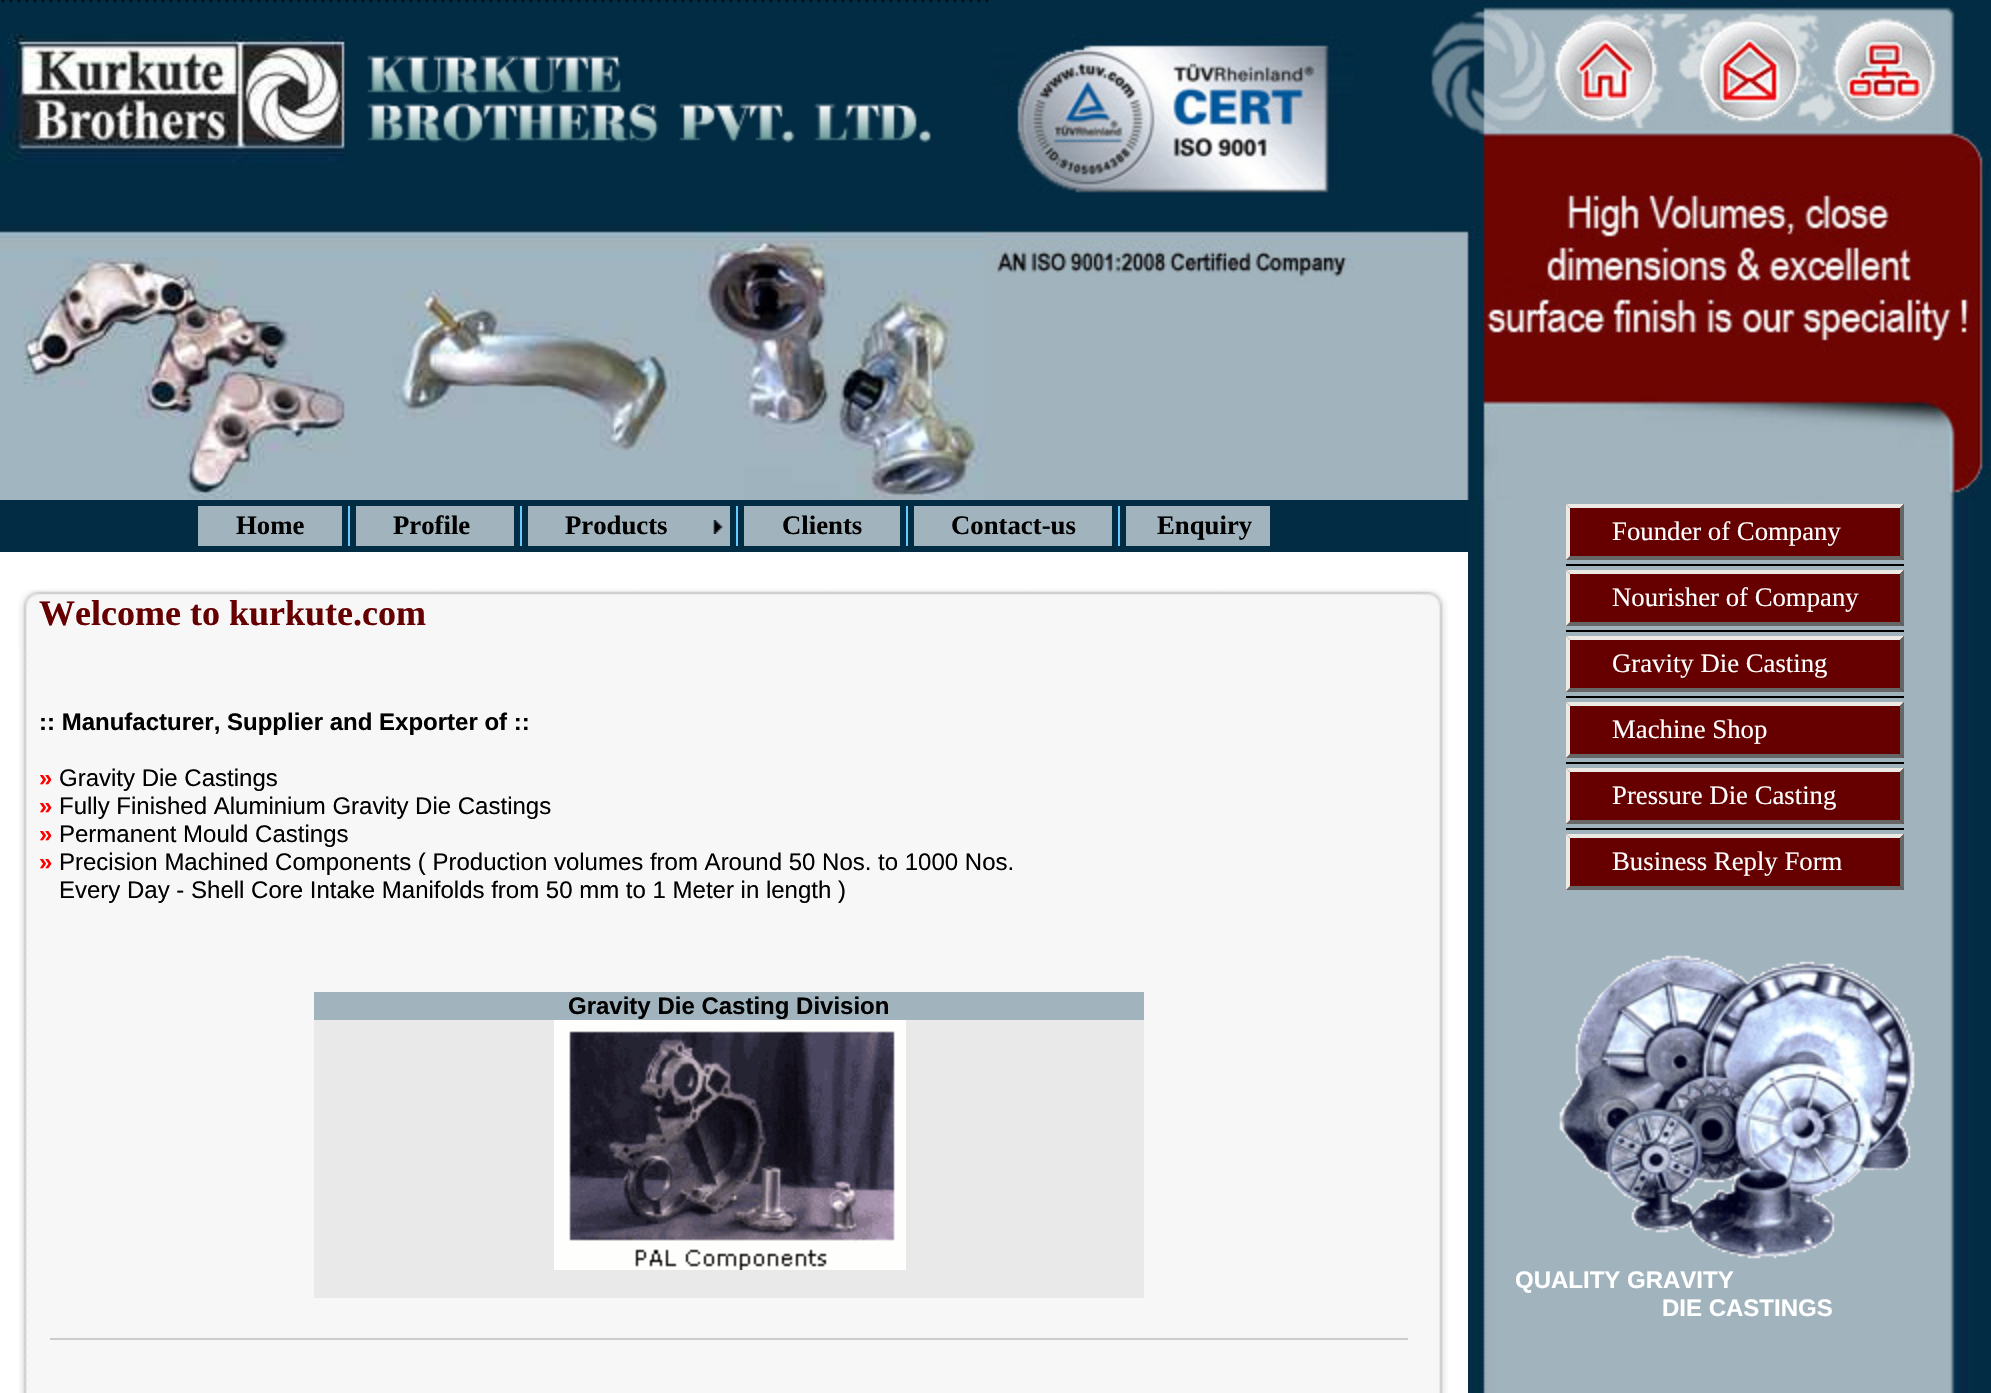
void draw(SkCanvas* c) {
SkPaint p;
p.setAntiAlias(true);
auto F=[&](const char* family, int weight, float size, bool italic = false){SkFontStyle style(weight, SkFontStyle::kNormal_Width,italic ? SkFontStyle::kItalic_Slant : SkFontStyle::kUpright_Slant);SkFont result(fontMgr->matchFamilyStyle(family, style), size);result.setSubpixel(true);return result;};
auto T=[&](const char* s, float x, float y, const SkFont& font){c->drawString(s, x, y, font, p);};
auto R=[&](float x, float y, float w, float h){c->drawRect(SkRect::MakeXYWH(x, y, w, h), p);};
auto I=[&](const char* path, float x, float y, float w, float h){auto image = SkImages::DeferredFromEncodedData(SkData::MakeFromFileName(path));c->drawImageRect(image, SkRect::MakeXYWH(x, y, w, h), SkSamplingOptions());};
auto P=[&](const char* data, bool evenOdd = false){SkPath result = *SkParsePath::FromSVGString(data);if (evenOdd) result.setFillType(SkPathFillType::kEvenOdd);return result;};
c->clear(0xffffffff);
I("1.png",989,0,1,500);
I("2.png",0,0,989,500);
I("3.png",990,0,428,500);
I("4.png",992,32,362,250);
I("5.png",1418,0,12,500);
I("6.png",1430,0,561,500);
p.setColor(0xff022c44);
R(0,500,1468,52);
p.setColor(0xffa1b3bd);
R(198,506,144,40);
auto f1 = F("Liberation Serif",700,26.75);
p.setColor(0xff000000);
T("Home",236,534,f1);
p.setColor(0xff66ccff);
R(348,506,2,40);
p.setColor(0xffa1b3bd);
R(356,506,158,40);
p.setColor(0xff000000);
T("Profile",393,534,f1);
p.setColor(0xff66ccff);
R(520,506,2,40);
p.setColor(0xffa1b3bd);
R(528,506,202,40);
p.setColor(0xff000000);
T("Products",565,534,f1);
I("7.png",713,520,10,14);
p.setColor(0xff66ccff);
R(736,506,2,40);
p.setColor(0xffa1b3bd);
R(744,506,156,40);
p.setColor(0xff000000);
T("Clients",782,534,f1);
p.setColor(0xff66ccff);
R(906,506,2,40);
p.setColor(0xffa1b3bd);
R(914,506,198,40);
p.setColor(0xff000000);
T("Contact-us",951,534,f1);
p.setColor(0xff66ccff);
R(1118,506,2,40);
p.setColor(0xffa1b3bd);
R(1126,506,144,40);
p.setColor(0xff000000);
T("Enquiry",1157,534,f1);
I("8.png",18,589,20,59);
I("9.png",38,589,1382,59);
auto f2 = F("Liberation Serif",700,36);
p.setColor(0xff660000);
T("Welcome to kurkute.com",39,625,f2);
I("10.png",1420,588,28,60);
I("11.png",19,648,19,28);
p.setColor(0xfff7f7f7);
R(38,648,1382,745);
I("12.png",1420,648,28,28);
I("13.png",19,676,19,260);
auto f3 = F("Liberation Sans",700,24);
p.setColor(0xff000000);
T(":: Manufacturer, Supplier and Exporter of ::",39,730,f3);
p.setColor(0xffff0000);
T("»",39,786,f3);
auto f4 = F("Liberation Sans",400,24);
p.setColor(0xff000000);
T("Gravity Die Castings",59,786,f4);
p.setColor(0xffff0000);
T("»",39,814,f3);
p.setColor(0xff000000);
T("Fully Finished Aluminium Gravity Die Castings",59,814,f4);
p.setColor(0xffff0000);
T("»",39,842,f3);
p.setColor(0xff000000);
T("Permanent Mould Castings",59,842,f4);
p.setColor(0xffff0000);
T("»",39,870,f3);
p.setColor(0xff000000);
T("Precision Machined Components ( Production volumes from Around 50 Nos. to 1000 Nos.",59,870,f4);
T("Every Day - Shell Core Intake Manifolds from 50 mm to 1 Meter in length )",59,898,f4);
I("14.png",1420,676,28,260);
I("11.png",19,936,19,28);
I("12.png",1420,936,28,28);
I("11.png",19,964,19,28);
I("12.png",1420,964,28,28);
I("15.png",19,992,19,306);
p.setColor(0xffa1b3bd);
R(314,992,830,28);
p.setColor(0xff000000);
T("Gravity Die Casting Division",568,1014,f3);
p.setColor(0xffe9e9e9);
R(314,1020,830,278);
I("16.png",554,1020,352,250);
I("17.png",1420,992,28,306);
I("11.png",19,1298,19,28);
I("12.png",1420,1298,28,28);
I("18.png",19,1326,19,67);
p.setColor(0xffcccccc);
R(50,1338,1358,2);
I("19.png",1420,1326,28,67);
I("20.png",1468,500,523,893);
p.setColor(0xff660000);
R(1566,504,338,56);
p.setColor(0xffedeae6);
c->drawPath(P("M1566 504h338l-4 4h-330z"),p);
p.setColor(0xff666666);
c->drawPath(P("M1904 504v56l-4-4v-48z"),p);
c->drawPath(P("M1904 560h-338l4-4h330z"),p);
p.setColor(0xffedeae6);
c->drawPath(P("M1566 560v-56l4 4v48z"),p);
auto f5 = F("Liberation Serif",400,26.75);
p.setColor(0xffffffff);
T("Founder of Company",1612,540,f5);
p.setColor(0xff000000);
R(1566,564,338,2);
p.setColor(0xff660000);
R(1566,570,338,56);
p.setColor(0xffedeae6);
c->drawPath(P("M1566 570h338l-4 4h-330z"),p);
p.setColor(0xff666666);
c->drawPath(P("M1904 570v56l-4-4v-48z"),p);
c->drawPath(P("M1904 626h-338l4-4h330z"),p);
p.setColor(0xffedeae6);
c->drawPath(P("M1566 626v-56l4 4v48z"),p);
p.setColor(0xffffffff);
T("Nourisher of Company",1612,606,f5);
p.setColor(0xff000000);
R(1566,630,338,2);
p.setColor(0xff660000);
R(1566,636,338,56);
p.setColor(0xffedeae6);
c->drawPath(P("M1566 636h338l-4 4h-330z"),p);
p.setColor(0xff666666);
c->drawPath(P("M1904 636v56l-4-4v-48z"),p);
c->drawPath(P("M1904 692h-338l4-4h330z"),p);
p.setColor(0xffedeae6);
c->drawPath(P("M1566 692v-56l4 4v48z"),p);
p.setColor(0xffffffff);
T("Gravity Die Casting",1612,672,f5);
p.setColor(0xff000000);
R(1566,696,338,2);
p.setColor(0xff660000);
R(1566,702,338,56);
p.setColor(0xffedeae6);
c->drawPath(P("M1566 702h338l-4 4h-330z"),p);
p.setColor(0xff666666);
c->drawPath(P("M1904 702v56l-4-4v-48z"),p);
c->drawPath(P("M1904 758h-338l4-4h330z"),p);
p.setColor(0xffedeae6);
c->drawPath(P("M1566 758v-56l4 4v48z"),p);
p.setColor(0xffffffff);
T("Machine Shop",1612,738,f5);
p.setColor(0xff000000);
R(1566,762,338,2);
p.setColor(0xff660000);
R(1566,768,338,56);
p.setColor(0xffedeae6);
c->drawPath(P("M1566 768h338l-4 4h-330z"),p);
p.setColor(0xff666666);
c->drawPath(P("M1904 768v56l-4-4v-48z"),p);
c->drawPath(P("M1904 824h-338l4-4h330z"),p);
p.setColor(0xffedeae6);
c->drawPath(P("M1566 824v-56l4 4v48z"),p);
p.setColor(0xffffffff);
T("Pressure Die Casting",1612,804,f5);
p.setColor(0xff000000);
R(1566,828,338,2);
p.setColor(0xff660000);
R(1566,834,338,56);
p.setColor(0xffedeae6);
c->drawPath(P("M1566 834h338l-4 4h-330z"),p);
p.setColor(0xff666666);
c->drawPath(P("M1904 834v56l-4-4v-48z"),p);
c->drawPath(P("M1904 890h-338l4-4h330z"),p);
p.setColor(0xffedeae6);
c->drawPath(P("M1566 890v-56l4 4v48z"),p);
p.setColor(0xffffffff);
T("Business Reply Form",1612,870,f5);
I("21.png",1559,955,356,304);
T("QUALITY GRAVITY",1515,1288,f3);
T("DIE CASTINGS",1662,1316,f3);
}
